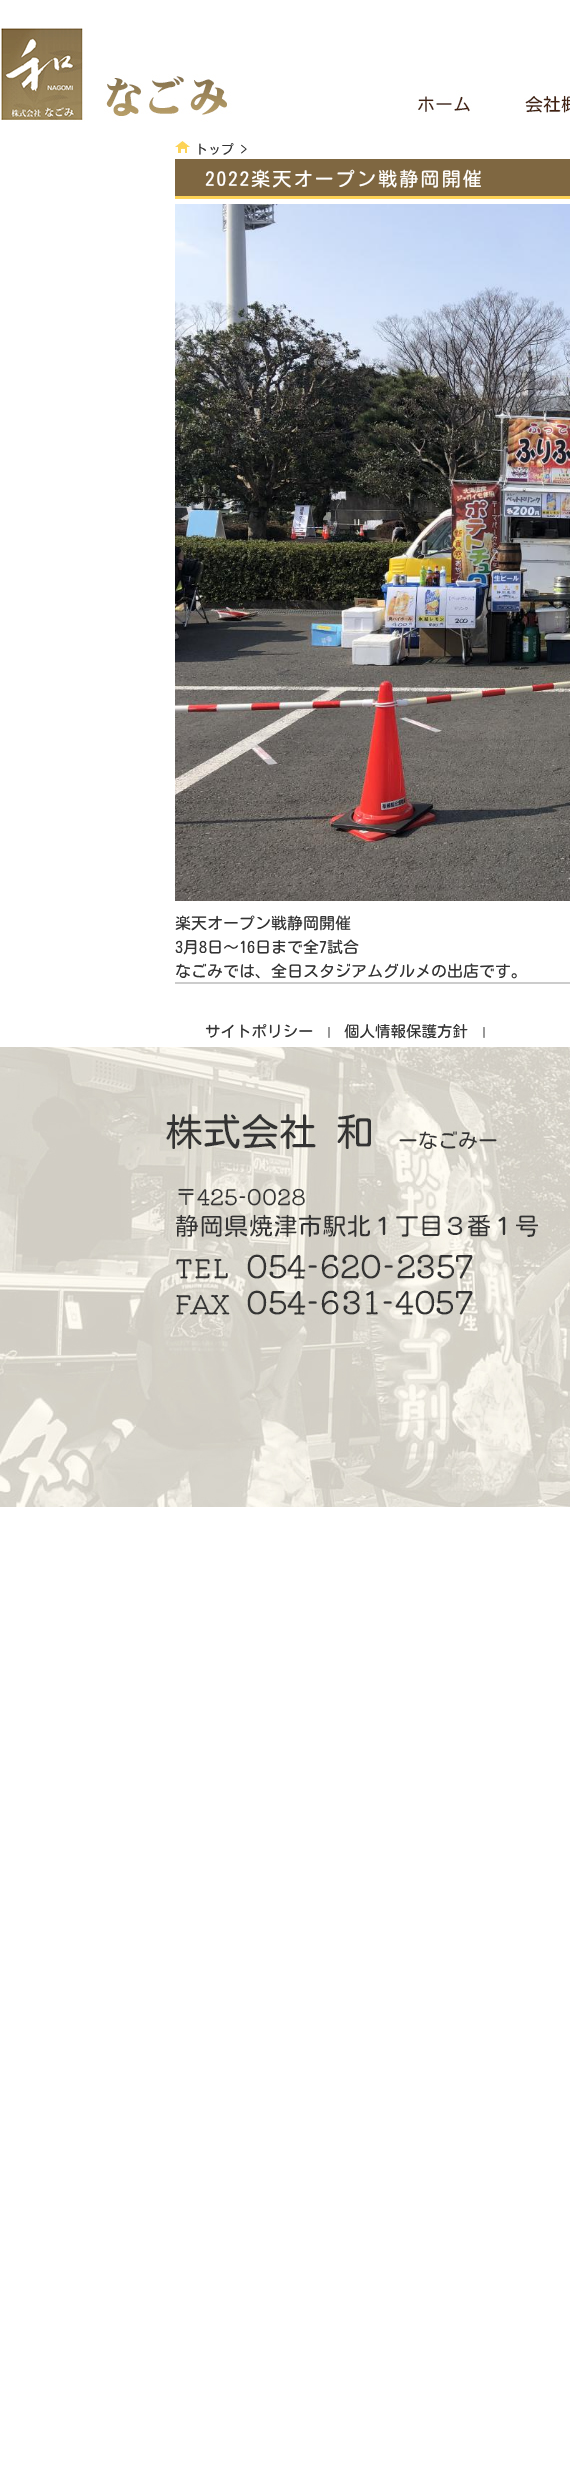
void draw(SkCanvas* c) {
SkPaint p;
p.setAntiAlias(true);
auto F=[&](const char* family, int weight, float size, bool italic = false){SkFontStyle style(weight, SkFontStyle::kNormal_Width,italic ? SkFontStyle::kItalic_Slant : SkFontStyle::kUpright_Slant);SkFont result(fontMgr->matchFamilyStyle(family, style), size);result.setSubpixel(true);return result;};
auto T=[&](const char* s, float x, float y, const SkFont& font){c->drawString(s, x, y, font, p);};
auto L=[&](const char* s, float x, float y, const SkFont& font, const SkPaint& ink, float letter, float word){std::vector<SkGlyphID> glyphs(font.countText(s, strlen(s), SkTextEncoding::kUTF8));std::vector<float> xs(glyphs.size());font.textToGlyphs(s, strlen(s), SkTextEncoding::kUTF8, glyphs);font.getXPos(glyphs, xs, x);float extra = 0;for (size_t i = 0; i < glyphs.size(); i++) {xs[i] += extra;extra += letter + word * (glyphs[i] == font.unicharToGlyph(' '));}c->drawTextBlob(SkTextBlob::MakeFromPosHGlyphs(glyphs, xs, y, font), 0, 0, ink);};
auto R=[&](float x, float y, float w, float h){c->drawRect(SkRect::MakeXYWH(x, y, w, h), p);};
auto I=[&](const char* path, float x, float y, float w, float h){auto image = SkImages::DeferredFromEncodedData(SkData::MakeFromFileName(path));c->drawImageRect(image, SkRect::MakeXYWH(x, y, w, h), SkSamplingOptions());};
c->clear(0xffffffff);
I("1.png",0,18,408,112);
I("2.png",408,18,107,112);
I("3.png",515,18,55,112);
I("4.png",175,141,15,12);
auto f1 = F("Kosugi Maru",400,13);
p.setColor(0xff333333);
T("トップ >",195,154,f1);
I("5.png",175,159,395,40);
auto f2 = F("Kosugi Maru",400,19.25);
p.setColor(0xffffffff);
L("2022楽天オープン戦静岡開催",205,186,f2,p,1.9,0);
I("6.png",175,204,395,697);
auto f3 = F("Kosugi Maru",400,16);
p.setColor(0xff333333);
T("楽天オープン戦静岡開催",175,929,f3);
T("3月8日～16日まで全7試合",175,953,f3);
T("なごみでは、全日スタジアムグルメの出店です。",175,977,f3);
p.setColor(0xffcccccc);
R(175,982,395,2);
I("7.png",0,1047,570,460);
I("8.png",166,1114,372,201);
auto f4 = F("Kosugi Maru",400,15.5);
p.setColor(0xff333333);
T("サイトポリシー",205,1037,f4);
auto f5 = F("Kosugi Maru",400,12);
T("|",326,1037,f5);
T("個人情報保護方針",344,1037,f4);
T("|",481,1037,f5);
}
